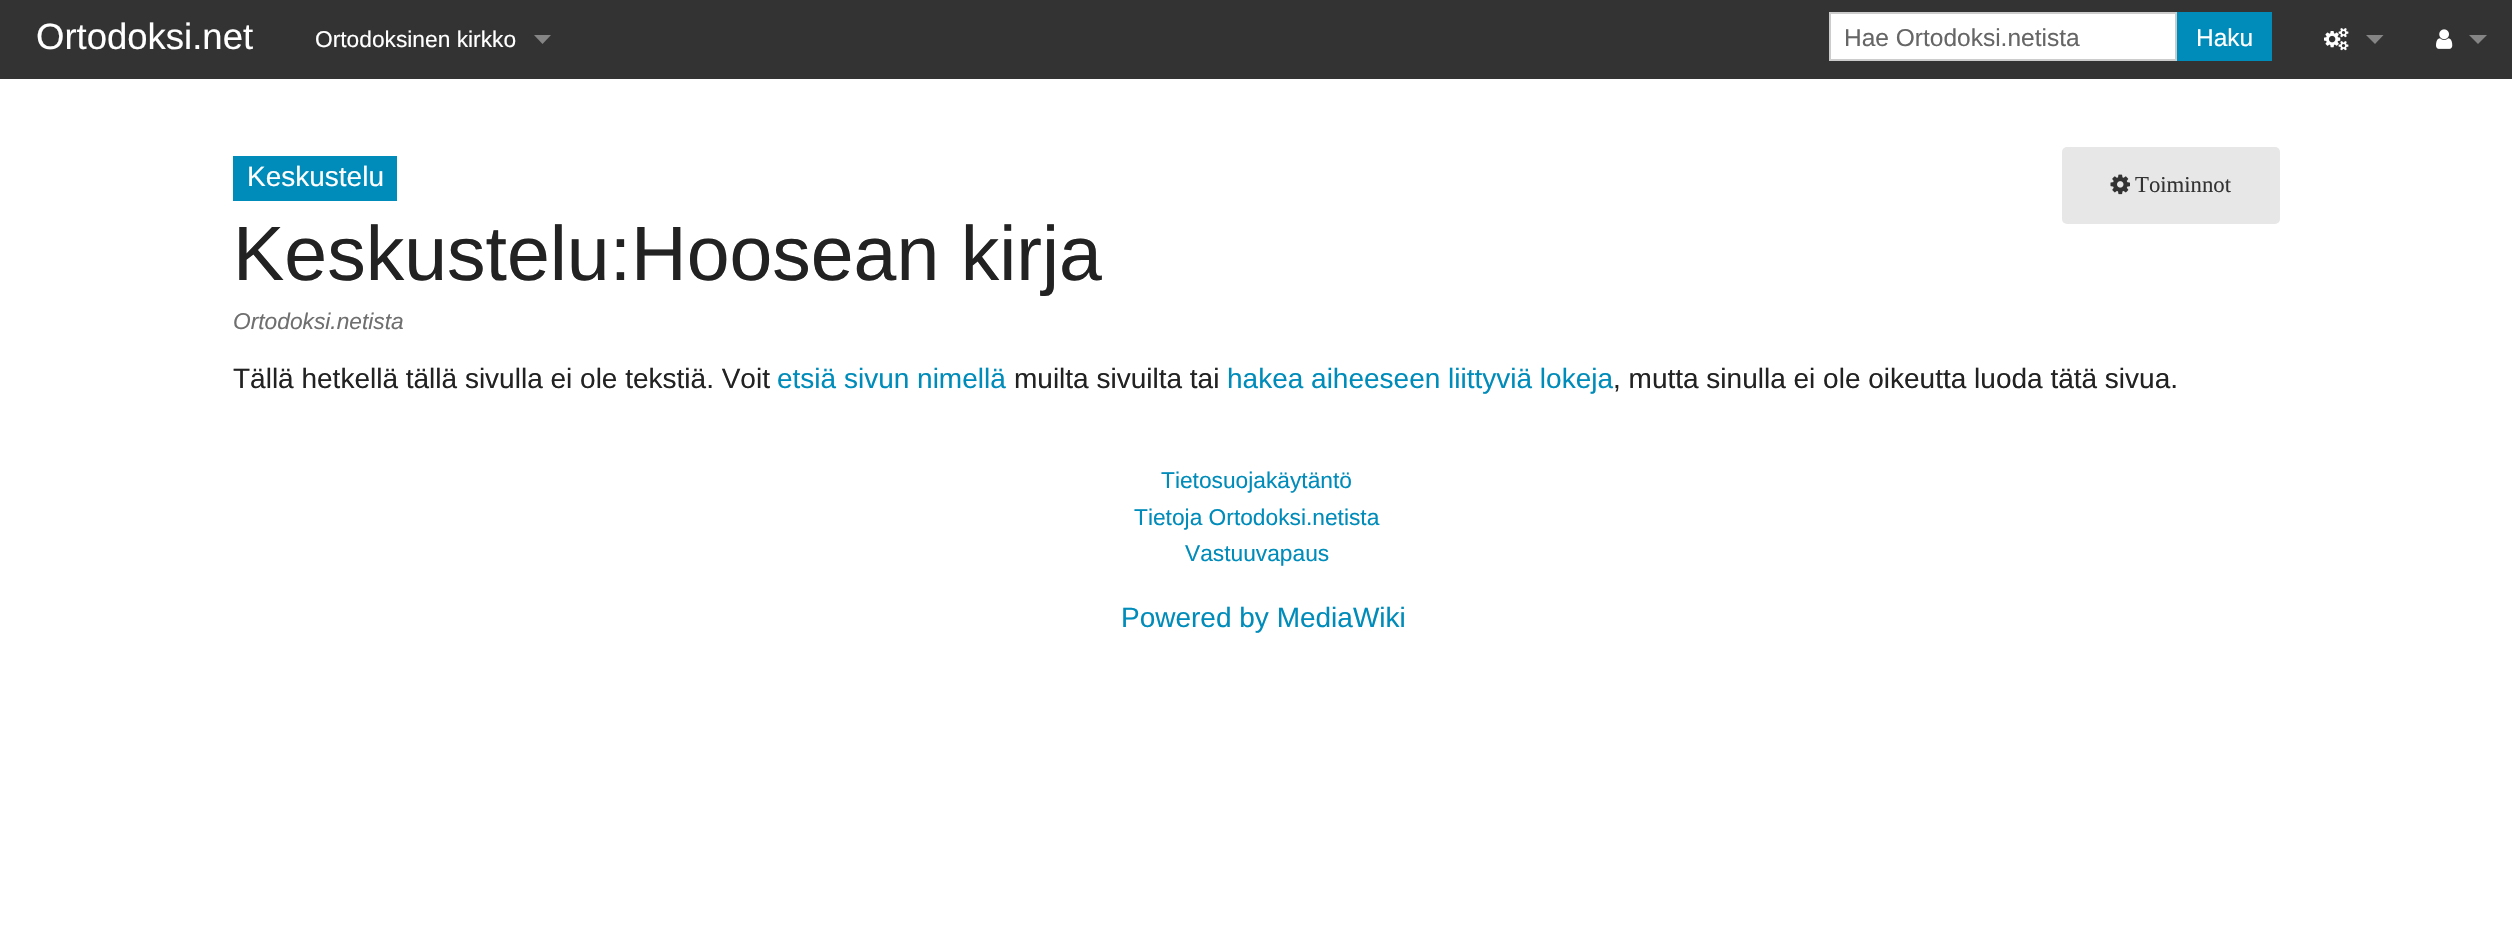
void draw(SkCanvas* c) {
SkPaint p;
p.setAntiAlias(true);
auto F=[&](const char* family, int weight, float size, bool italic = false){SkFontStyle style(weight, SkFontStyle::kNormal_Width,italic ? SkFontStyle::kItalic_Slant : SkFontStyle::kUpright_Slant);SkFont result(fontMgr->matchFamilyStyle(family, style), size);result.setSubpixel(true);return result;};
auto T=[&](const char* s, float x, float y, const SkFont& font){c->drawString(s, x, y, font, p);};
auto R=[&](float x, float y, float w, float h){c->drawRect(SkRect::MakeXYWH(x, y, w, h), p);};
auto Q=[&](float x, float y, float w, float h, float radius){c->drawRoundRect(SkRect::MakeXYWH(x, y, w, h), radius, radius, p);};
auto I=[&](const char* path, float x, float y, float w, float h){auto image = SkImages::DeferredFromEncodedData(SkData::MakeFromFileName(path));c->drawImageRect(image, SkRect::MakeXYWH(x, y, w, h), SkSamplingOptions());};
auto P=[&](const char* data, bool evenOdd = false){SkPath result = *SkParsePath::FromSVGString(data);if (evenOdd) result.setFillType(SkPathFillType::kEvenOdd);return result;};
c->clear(0xffffffff);
p.setColor(0xff333333);
R(0,0,2512,79);
auto f1 = F("Liberation Sans",400,36.5);
p.setColor(0xffffffff);
T("Ortodoksi.net",36,49,f1);
auto f2 = F("Liberation Sans",400,22.75);
T("Ortodoksinen kirkko",315,47,f2);
p.setColor(0xff858585);
c->drawPath(P("M534 35h17l-8.5 9z"),p);
p.setColor(0xffffffff);
c->drawRect(SkRect::MakeXYWH(1830,13,346,47),p);
p.setStroke(true);
p.setStrokeWidth(2);
p.setColor(0xffcccccc);
c->drawRect(SkRect::MakeXYWH(1830,13,346,47),p);
auto f3 = F("Liberation Sans",400,24.5);
p.setStroke(false);
p.setColor(0xff666666);
T("Hae Ortodoksi.netista",1844,46,f3);
p.setColor(0xff008cba);
R(2177,12,95,49);
p.setColor(0xffffffff);
T("Haku",2196,46,f3);
I("1.png",2324,28,25,23);
p.setColor(0xff858585);
c->drawPath(P("M2366 35h17.5l-8.5 9z"),p);
I("2.png",2436,29,17,20);
c->drawPath(P("M2469 35h18l-9 9z"),p);
p.setColor(0xff008cba);
R(233,156,164,45);
auto f4 = F("Liberation Sans",400,28);
p.setColor(0xffffffff);
T("Keskustelu",247,186,f4);
p.setColor(0xffe7e7e7);
Q(2062,147,218,77,5);
I("3.png",2110,174,20,21);
auto f5 = F("Liberation Serif",400,22.75);
p.setColor(0xff333333);
T("Toiminnot",2135,192,f5);
auto f6 = F("Liberation Sans",400,77);
p.setColor(0xff222222);
T("Keskustelu:Hoosean kirja",233,280,f6);
auto f7 = F("Liberation Sans",400,22.75,true);
p.setColor(0xff6f6f6f);
T("Ortodoksi.netista",233,329,f7);
p.setColor(0xff222222);
T("Tällä hetkellä tällä sivulla ei ole tekstiä. Voit",233,388,f4);
p.setColor(0xff008cba);
T("etsiä sivun nimellä",777,388,f4);
p.setColor(0xff222222);
T("muilta sivuilta tai",1014,388,f4);
p.setColor(0xff008cba);
T("hakea aiheeseen liittyviä lokeja",1227,388,f4);
p.setColor(0xff222222);
T(", mutta sinulla ei ole oikeutta luoda tätä sivua.",1613,388,f4);
p.setColor(0xff008cba);
T("Tietosuojakäytäntö",1161,488,f2);
T("Tietoja Ortodoksi.netista",1134,525,f2);
T("Vastuuvapaus",1185,561,f2);
T("Powered by MediaWiki",1121,627,f4);
}
